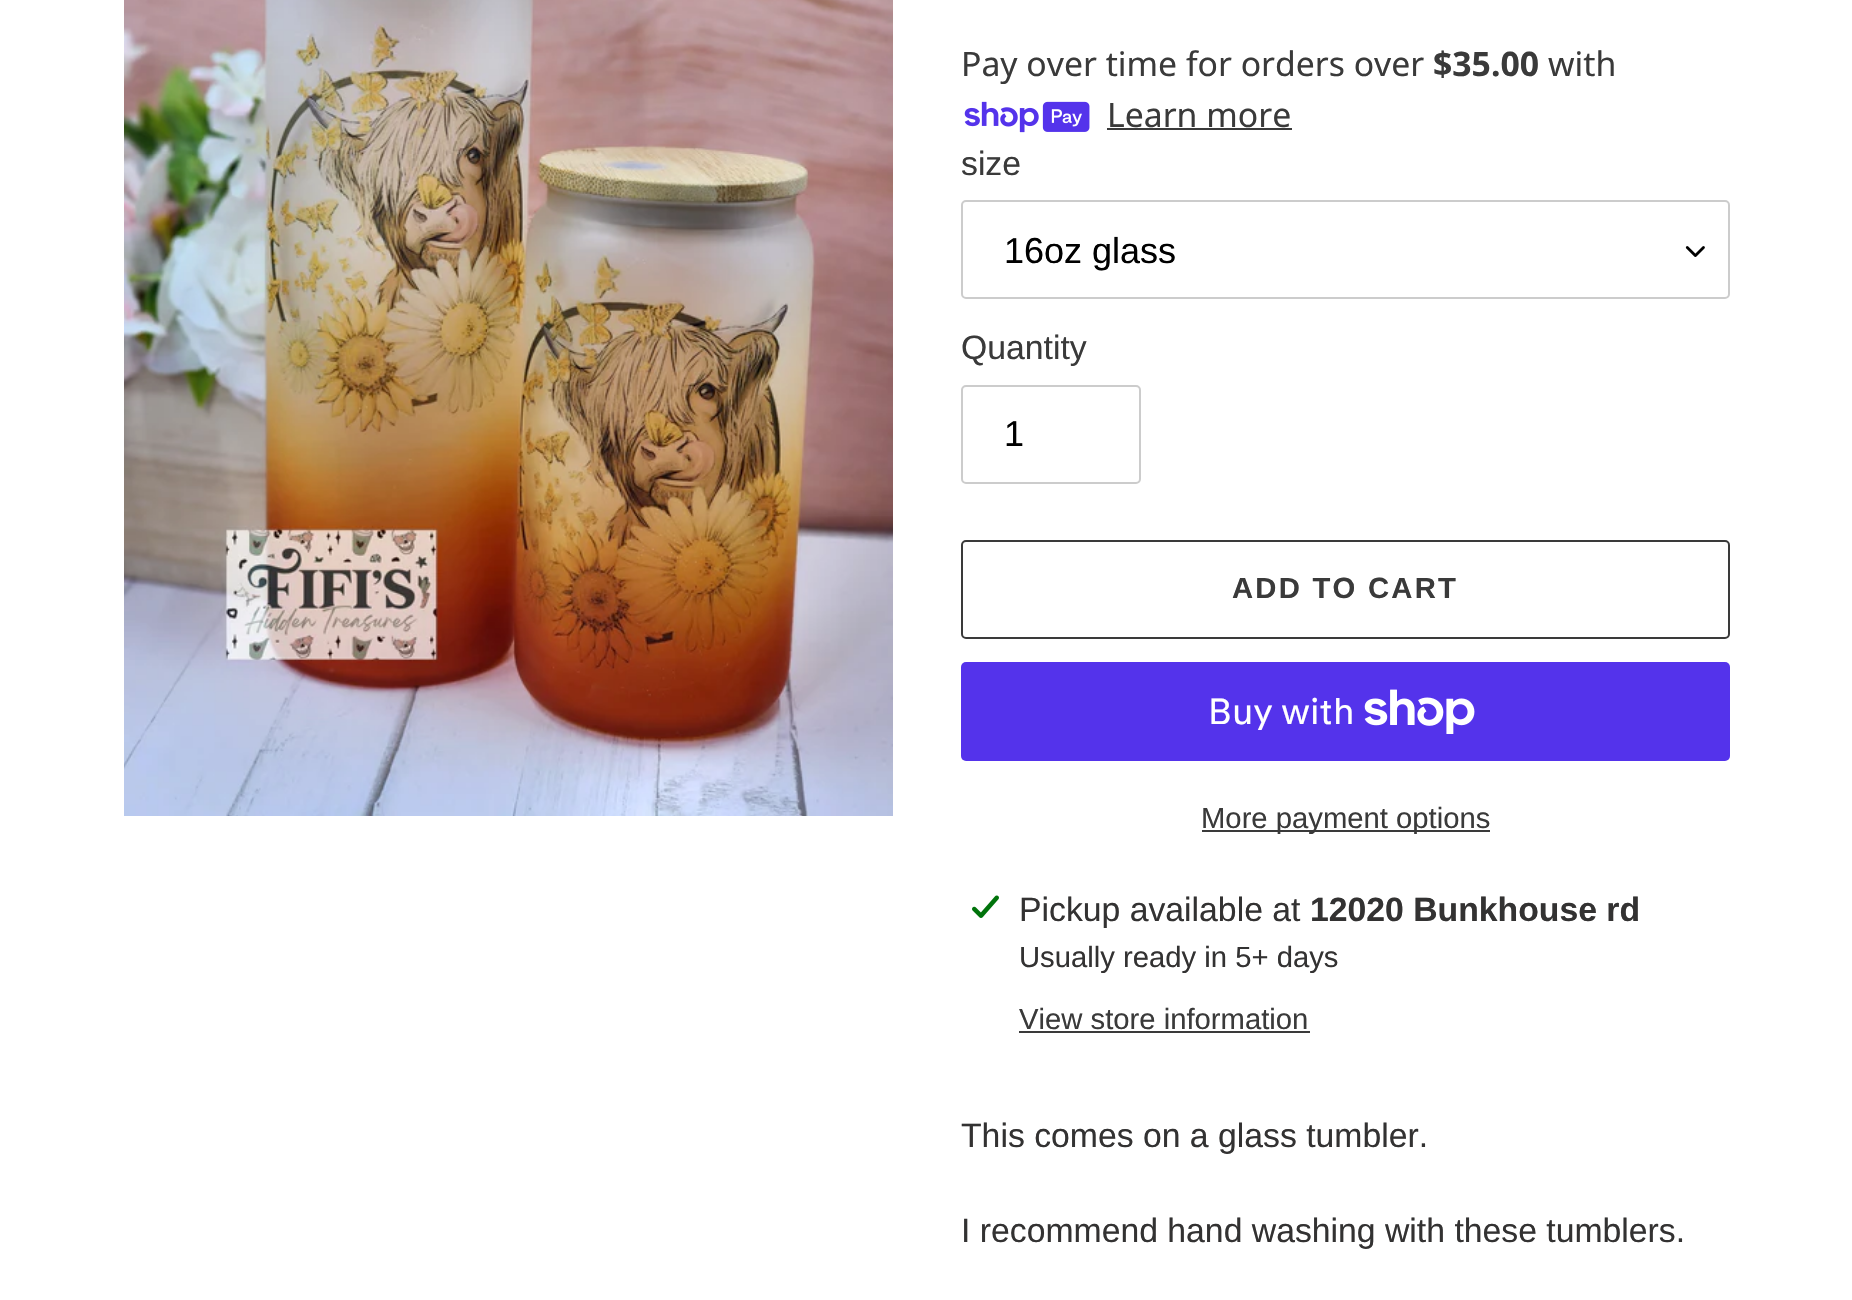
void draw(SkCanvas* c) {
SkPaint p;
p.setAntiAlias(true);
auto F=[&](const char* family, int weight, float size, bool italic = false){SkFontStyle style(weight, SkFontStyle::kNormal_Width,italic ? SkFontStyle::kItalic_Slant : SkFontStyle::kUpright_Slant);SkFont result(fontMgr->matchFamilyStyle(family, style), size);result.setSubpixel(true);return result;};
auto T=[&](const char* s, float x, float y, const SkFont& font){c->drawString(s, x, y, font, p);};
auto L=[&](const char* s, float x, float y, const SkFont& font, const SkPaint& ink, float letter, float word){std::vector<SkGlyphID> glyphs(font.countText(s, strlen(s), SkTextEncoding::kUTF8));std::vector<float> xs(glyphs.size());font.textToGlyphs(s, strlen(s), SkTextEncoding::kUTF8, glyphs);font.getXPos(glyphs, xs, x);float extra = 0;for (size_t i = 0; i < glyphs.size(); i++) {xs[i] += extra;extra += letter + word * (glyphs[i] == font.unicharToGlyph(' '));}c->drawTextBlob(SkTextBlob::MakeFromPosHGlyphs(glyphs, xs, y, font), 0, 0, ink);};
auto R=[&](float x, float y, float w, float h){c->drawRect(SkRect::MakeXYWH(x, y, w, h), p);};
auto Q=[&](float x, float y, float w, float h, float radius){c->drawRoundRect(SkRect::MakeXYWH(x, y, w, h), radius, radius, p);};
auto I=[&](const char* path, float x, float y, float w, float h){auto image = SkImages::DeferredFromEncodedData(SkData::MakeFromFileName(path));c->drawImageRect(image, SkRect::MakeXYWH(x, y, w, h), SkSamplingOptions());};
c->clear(0xffffffff);
I("1.png",124,0,769,816);
auto f1 = F("Noto Sans",400,33.75);
p.setColor(0xff3a3a3a);
T("Pay over time for orders over",961,76,f1);
auto f2 = F("Noto Sans",700,33.75);
T("$35.00",1433,76,f2);
T("with",1548,76,f1);
I("2.png",964,101,126,32);
T("Learn more",1107,127,f1);
R(1107,128,185,2);
auto f3 = F("Liberation Sans",400,33.75);
T("size",961,175,f3);
I("3.png",1685,246,20,11);
p.setStroke(true);
p.setStrokeWidth(2);
p.setColor(0xffcccccc);
c->drawRoundRect(SkRect::MakeXYWH(962,201,767,97),4,4,p);
auto f4 = F("Liberation Sans",400,36);
p.setStroke(false);
p.setColor(0xff000000);
T("16oz glass",1004,263,f4);
p.setColor(0xff3a3a3a);
T("Quantity",961,359,f3);
p.setStroke(true);
p.setColor(0xffcccccc);
c->drawRoundRect(SkRect::MakeXYWH(962,386,178,97),4,4,p);
p.setStroke(false);
p.setColor(0xff000000);
T("1",1004,446,f4);
p.setStroke(true);
p.setColor(0xff3a3a3a);
c->drawRoundRect(SkRect::MakeXYWH(962,541,767,97),4,4,p);
auto f5 = F("Liberation Sans",700,29.25);
p.setStroke(false);
L("ADD TO CART",1232,598,f5,p,2.25,0);
p.setColor(0xff5433eb);
Q(961,662,769,99,5);
auto f6 = F("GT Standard",400,36);
p.setColor(0xffffffff);
T("Buy with",1208,724,f6);
I("4.png",1364,689,111,45);
p.setColor(0xff3a3a3a);
R(1202,830,288,2);
auto f7 = F("Liberation Sans",400,29.25);
T("More payment options",1201,828,f7);
I("5.png",972,895,27,23);
p.setColor(0xff333232);
T("Pickup available at",1019,921,f3);
auto f8 = F("Liberation Sans",700,33.75);
T("12020 Bunkhouse rd",1310,921,f8);
T("Usually ready in 5+ days",1019,967,f7);
p.setColor(0xff3a3a3a);
T("View store information",1019,1029,f7);
R(1019,1031,291,2);
p.setColor(0xff333232);
T("This comes on a glass tumbler.",961,1147,f3);
T("I recommend hand washing with these tumblers.",961,1242,f3);
}
